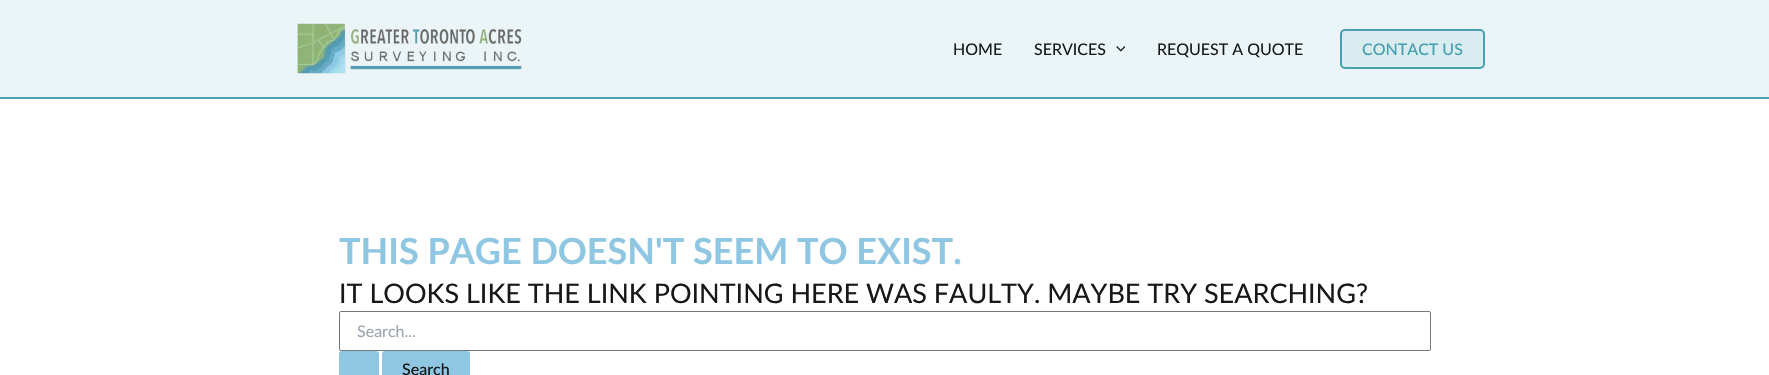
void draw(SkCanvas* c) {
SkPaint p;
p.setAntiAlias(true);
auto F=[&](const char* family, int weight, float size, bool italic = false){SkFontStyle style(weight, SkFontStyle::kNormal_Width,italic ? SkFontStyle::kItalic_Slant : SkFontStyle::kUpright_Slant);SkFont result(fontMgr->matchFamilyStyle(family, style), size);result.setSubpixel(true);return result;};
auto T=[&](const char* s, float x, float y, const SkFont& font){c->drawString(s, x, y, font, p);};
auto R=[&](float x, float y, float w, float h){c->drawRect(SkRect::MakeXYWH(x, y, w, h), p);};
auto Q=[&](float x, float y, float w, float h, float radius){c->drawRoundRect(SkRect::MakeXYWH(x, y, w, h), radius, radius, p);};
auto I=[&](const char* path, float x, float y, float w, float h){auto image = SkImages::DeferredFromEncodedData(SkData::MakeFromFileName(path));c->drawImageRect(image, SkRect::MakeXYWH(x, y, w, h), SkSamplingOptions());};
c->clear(0xffffffff);
p.setColor(0xffebf5f7);
R(0,0,1769,97);
p.setColor(0xff48a1b2);
R(0,97,1769,2);
I("1.png",297,23,225,51);
auto f1 = F("Lato",400,16);
p.setColor(0xff181818);
T("HOME",953,55,f1);
T("SERVICES",1034,55,f1);
I("2.png",1116,46,9,6);
T("REQUEST A QUOTE",1157,55,f1);
p.setColor(0xffd9ecf0);
c->drawRoundRect(SkRect::MakeXYWH(1341,30,143,38),4,4,p);
p.setStroke(true);
p.setStrokeWidth(2);
p.setColor(0xff48a1b2);
c->drawRoundRect(SkRect::MakeXYWH(1341,30,143,38),4,4,p);
auto f2 = F("Lato",500,16);
p.setStroke(false);
T("CONTACT US",1362,55,f2);
auto f3 = F("Lato",700,36);
p.setColor(0xff8fc7e3);
T("THIS PAGE DOESN'T SEEM TO EXIST.",339,264,f3);
auto f4 = F("Lato",400,27);
p.setColor(0xff181818);
T("IT LOOKS LIKE THE LINK POINTING HERE WAS FAULTY. MAYBE TRY SEARCHING?",339,303,f4);
p.setStroke(true);
p.setStrokeWidth(1);
p.setColor(0xff767676);
c->drawRoundRect(SkRect::MakeXYWH(339.5,311.5,1091,39),1.5,1.5,p);
p.setStroke(false);
p.setColor(0xff9ca3af);
T("Search...",357,337,f1);
p.setColor(0xff8fc7e3);
Q(339,351,40,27,3);
Q(382,351,88,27,3);
p.setColor(0xff181818);
T("Search",402,375,f2);
}
